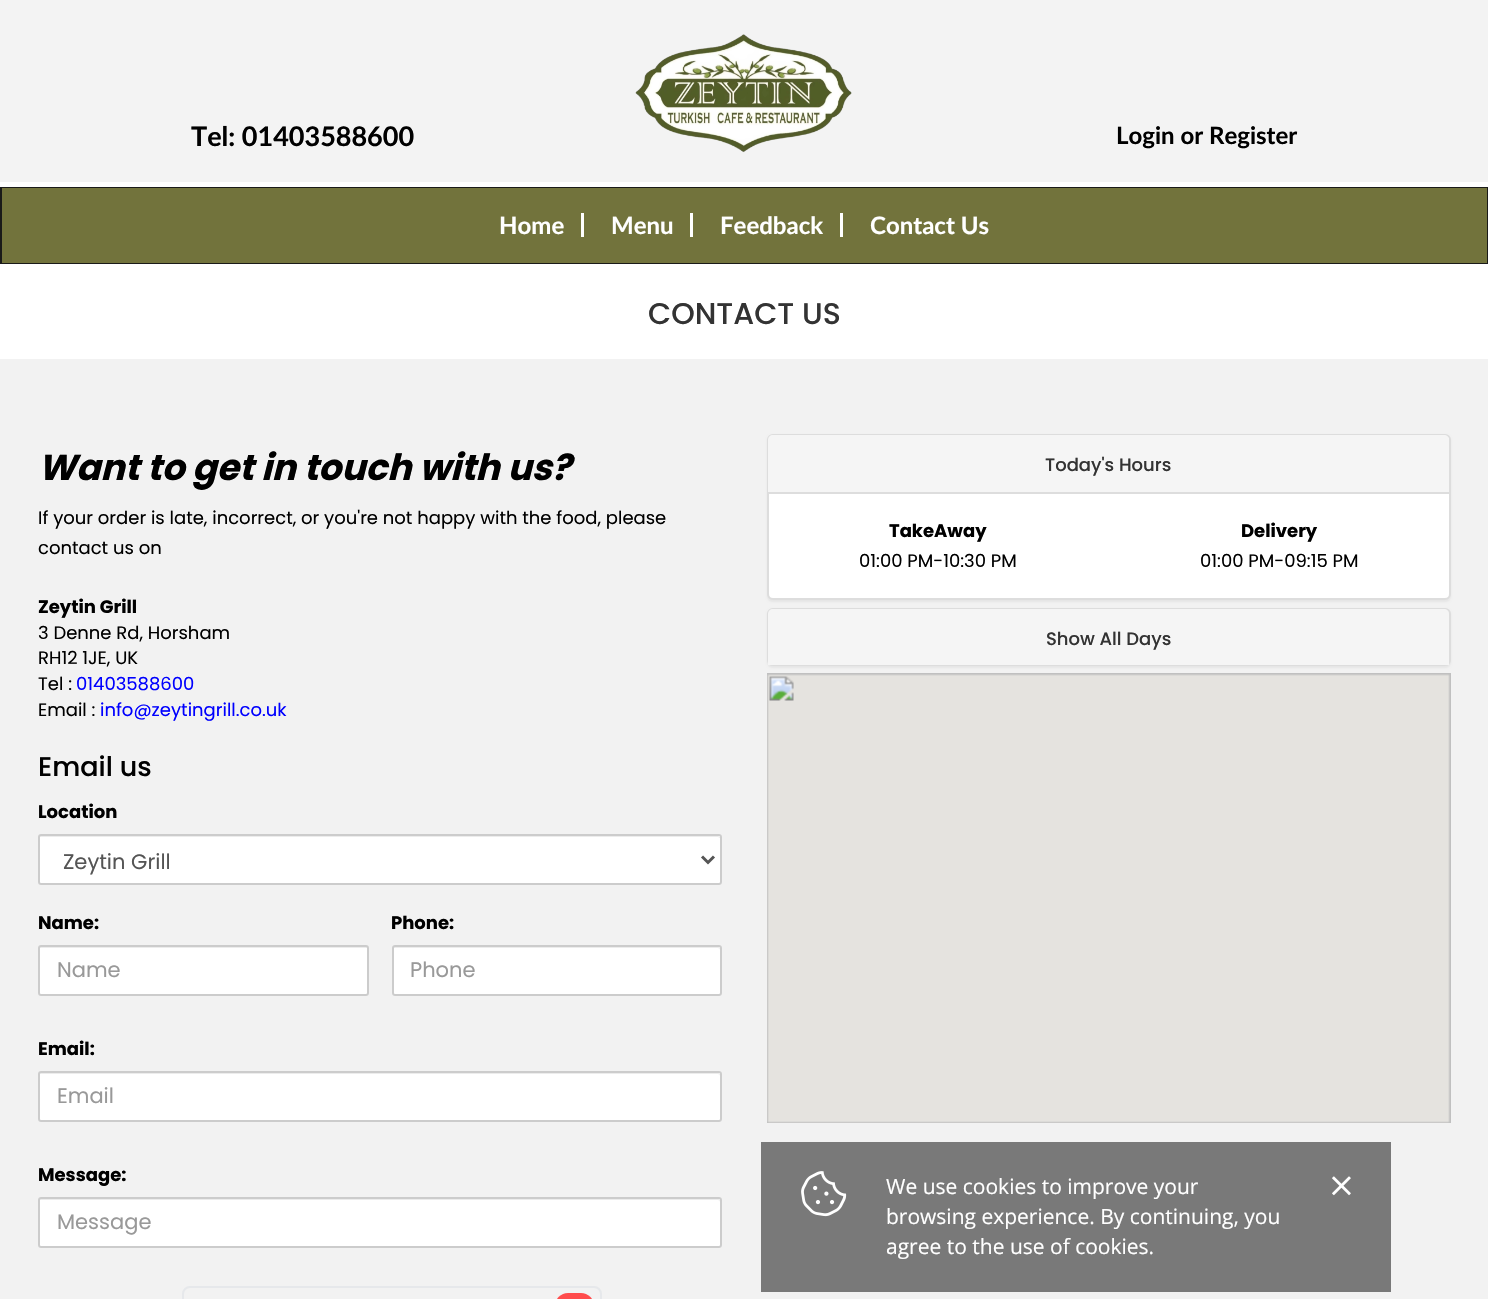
void draw(SkCanvas* c) {
SkPaint p;
p.setAntiAlias(true);
auto F=[&](const char* family, int weight, float size, bool italic = false){SkFontStyle style(weight, SkFontStyle::kNormal_Width,italic ? SkFontStyle::kItalic_Slant : SkFontStyle::kUpright_Slant);SkFont result(fontMgr->matchFamilyStyle(family, style), size);result.setSubpixel(true);return result;};
auto T=[&](const char* s, float x, float y, const SkFont& font){c->drawString(s, x, y, font, p);};
auto R=[&](float x, float y, float w, float h){c->drawRect(SkRect::MakeXYWH(x, y, w, h), p);};
auto Q=[&](float x, float y, float w, float h, float radius){c->drawRoundRect(SkRect::MakeXYWH(x, y, w, h), radius, radius, p);};
auto I=[&](const char* path, float x, float y, float w, float h){auto image = SkImages::DeferredFromEncodedData(SkData::MakeFromFileName(path));c->drawImageRect(image, SkRect::MakeXYWH(x, y, w, h), SkSamplingOptions());};
auto P=[&](const char* data, bool evenOdd = false){SkPath result = *SkParsePath::FromSVGString(data);if (evenOdd) result.setFillType(SkPathFillType::kEvenOdd);return result;};
c->clear(0xffffffff);
p.setColor(0xfff3f3f3);
R(0,0,1488,182);
auto f1 = F("Lato",700,27);
p.setColor(0xff000000);
T("Tel: 01403588600",191,146,f1);
I("1.png",635,34,217,119);
auto f2 = F("Lato",700,24);
T("Login or Register",1116,144,f2);
p.setColor(0xff1a1a19);
R(0,187,1488,77);
p.setColor(0xff72733c);
R(2,188,1485,75);
p.setColor(0xffffffff);
T("Home",499,234,f2);
R(581,213,3,24);
T("Menu",611,234,f2);
R(690,213,3,24);
T("Feedback",720,234,f2);
R(840,213,3,24);
T("Contact Us",870,234,f2);
auto f3 = F("Poppins",500,30);
p.setColor(0xff333333);
T("CONTACT US",648,324,f3);
p.setColor(0xfff2f2f2);
R(0,359,1488,940);
auto f4 = F("Poppins",700,36,true);
p.setColor(0xff000000);
T("Want to get in touch with us?",38,480,f4);
auto f5 = F("Poppins",400,18);
T("If your order is late, incorrect, or you're not happy with the food, please",38,524,f5);
T("contact us on",38,554,f5);
auto f6 = F("Poppins",700,18);
T("Zeytin Grill",38,613,f6);
T("3 Denne Rd, Horsham",38,639,f5);
T("RH12 1JE, UK",38,664,f5);
T("Tel :",38,690,f5);
p.setColor(0xff0000ff);
T("01403588600",76,690,f5);
p.setColor(0xff000000);
T("Email :",38,716,f5);
p.setColor(0xff0000ff);
T("info@zeytingrill.co.uk",100,716,f5);
auto f7 = F("Poppins",500,27);
p.setColor(0xff000000);
T("Email us",38,776,f7);
T("Location",38,818,f6);
p.setColor(0xffffffff);
Q(38,834,684,51,3);
p.setColor(0xffececec);
c->drawPath(P("M40 837h678l2 1v-1l-2-1h-678l-1 1v1z"),p);
p.setStroke(true);
p.setStrokeWidth(2);
p.setColor(0xffcccccc);
c->drawRoundRect(SkRect::MakeXYWH(39,835,682,49),2,2,p);
p.setStrokeWidth(3);
p.setColor(0xff555555);
c->drawPath(P("M702 856.5l6 6l6-6"),p);
auto f8 = F("Poppins",400,21);
p.setStroke(false);
T("Zeytin Grill",63,869,f8);
p.setColor(0xff000000);
T("Name:",38,929,f6);
p.setColor(0xffffffff);
Q(38,945,331,51,3);
p.setColor(0xffececec);
c->drawPath(P("M40 947l-1 1h328l1 2c0-1 0-3-2-3z"),p);
p.setStroke(true);
p.setStrokeWidth(2);
p.setColor(0xffcccccc);
c->drawRoundRect(SkRect::MakeXYWH(39,946,329,49),2,2,p);
p.setStroke(false);
p.setColor(0xff999999);
T("Name",57,977,f8);
p.setColor(0xff000000);
T("Phone:",391,929,f6);
p.setColor(0xffffffff);
Q(392,945,330,51,3);
p.setColor(0xffececec);
c->drawPath(P("M394 948h324c1 0 2 1 2 2c0-1 0-3-2-3h-324l-1 1v2z"),p);
p.setStroke(true);
p.setColor(0xffcccccc);
c->drawRoundRect(SkRect::MakeXYWH(393,946,328,49),2,2,p);
p.setStroke(false);
p.setColor(0xff999999);
T("Phone",410,977,f8);
p.setColor(0xff000000);
T("Email:",38,1055,f6);
p.setColor(0xffffffff);
Q(38,1071,684,51,3);
p.setColor(0xffececec);
c->drawPath(P("M40 1074h678c1 0 2 1 2 2c0-1 0-3-2-3h-678l-1 1v2z"),p);
p.setStroke(true);
p.setColor(0xffcccccc);
c->drawRoundRect(SkRect::MakeXYWH(39,1072,682,49),2,2,p);
p.setStroke(false);
p.setColor(0xff999999);
T("Email",57,1103,f8);
p.setColor(0xff000000);
T("Message:",38,1181,f6);
p.setColor(0xffffffff);
Q(38,1197,684,51,3);
p.setColor(0xffececec);
c->drawPath(P("M40 1200h678c1 0 2 1 2 2c0-1 0-3-2-3h-678l-1 1v2z"),p);
p.setStroke(true);
p.setColor(0xffcccccc);
c->drawRoundRect(SkRect::MakeXYWH(39,1198,682,49),2,2,p);
p.setStroke(false);
p.setColor(0xff999999);
T("Message",57,1229,f8);
p.setStroke(true);
p.setColor(0xffe6e8eb);
c->drawRoundRect(SkRect::MakeXYWH(183,1287,418,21),7,7,p);
p.setStroke(false);
p.setColor(0xffff4c4c);
Q(555,1293,39,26,19.5);
p.setColor(0x0d000000);
p.setMaskFilter(SkMaskFilter::MakeBlur(kNormal_SkBlurStyle, 1));
c->drawRoundRect(SkRect::MakeXYWH(767,435,684,167),6,6,p);
p.setMaskFilter(nullptr);
p.setColor(0xffffffff);
c->drawRoundRect(SkRect::MakeXYWH(768,435,682,164),5,5,p);
p.setStroke(true);
p.setColor(0xffdddddd);
c->drawRoundRect(SkRect::MakeXYWH(768,435,682,164),5,5,p);
p.setStroke(false);
p.setColor(0xfff5f5f5);
c->drawPath(P("M773 435h671c3 0 5 2 5 5v52h-681v-52c0-3 2-5 5-5z"),p);
auto f9 = F("Poppins",500,18);
p.setColor(0xff333333);
T("Today's Hours",1045,471,f9);
p.setColor(0xffdddddd);
R(768,492,681,2);
p.setColor(0xff000000);
T("TakeAway",889,537,f6);
T("Delivery",1241,537,f6);
T("01:00 PM-10:30 PM",859,567,f5);
T("01:00 PM-09:15 PM",1200,567,f5);
p.setColor(0x0d000000);
p.setMaskFilter(SkMaskFilter::MakeBlur(kNormal_SkBlurStyle, 1));
c->drawRoundRect(SkRect::MakeXYWH(767,609,684,59),6,6,p);
p.setMaskFilter(nullptr);
p.setStroke(true);
p.setColor(0xffdddddd);
c->drawRoundRect(SkRect::MakeXYWH(768,609,682,56),5,5,p);
p.setStroke(false);
p.setColor(0xfff5f5f5);
c->drawPath(P("M773 609h671c3 0 5 2 5 5v51h-681v-51c0-3 2-5 5-5z"),p);
p.setColor(0xff333333);
T("Show All Days",1046,645,f9);
I("2.png",767,673,684,450);
p.setColor(0xff797979);
R(761,1142,630,150);
I("3.png",801,1171,46,46);
auto f10 = F("Open Sans",400,21);
p.setColor(0xffffffff);
T("We use cookies to improve your",886,1194,f10);
T("browsing experience. By continuing, you",886,1224,f10);
T("agree to the use of cookies.",886,1254,f10);
I("4.png",1332,1176,19,20);
}
